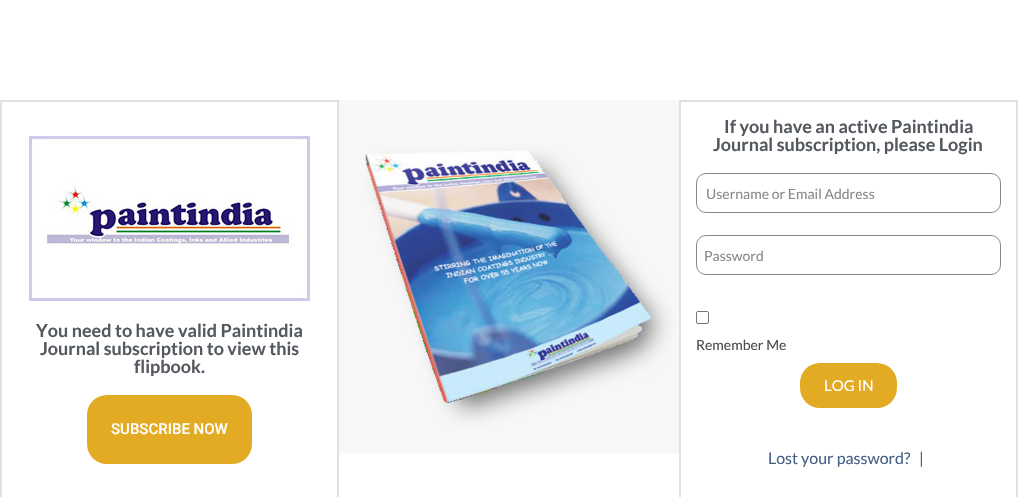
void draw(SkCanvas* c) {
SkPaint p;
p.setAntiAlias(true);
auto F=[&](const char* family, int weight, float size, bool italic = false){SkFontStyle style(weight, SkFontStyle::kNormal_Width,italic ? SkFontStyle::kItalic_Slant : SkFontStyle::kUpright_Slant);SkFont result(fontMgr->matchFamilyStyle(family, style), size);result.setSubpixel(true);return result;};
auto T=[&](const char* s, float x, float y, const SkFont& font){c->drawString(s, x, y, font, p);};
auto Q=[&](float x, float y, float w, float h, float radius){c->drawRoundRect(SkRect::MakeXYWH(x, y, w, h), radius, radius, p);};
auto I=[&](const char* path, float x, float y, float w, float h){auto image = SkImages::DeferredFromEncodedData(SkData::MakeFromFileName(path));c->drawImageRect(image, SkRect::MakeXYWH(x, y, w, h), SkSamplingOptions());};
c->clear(0xffffffff);
p.setStroke(true);
p.setStrokeWidth(2);
p.setColor(0xffe0e0e0);
c->drawRect(SkRect::MakeXYWH(1,101,337,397),p);
I("1.png",29,136,281,165);
auto f1 = F("Lato",700,18);
p.setStroke(false);
p.setColor(0xff54595f);
T("You need to have valid Paintindia",36,337,f1);
T("Journal subscription to view this",40,355,f1);
T("flipbook.",134,373,f1);
p.setColor(0xffe3ab24);
Q(87,395,165,69,20);
auto f2 = F("Roboto",500,15);
p.setColor(0xffffffff);
T("SUBSCRIBE NOW",111,434,f2);
I("2.png",339,100,340,353);
p.setStroke(true);
p.setColor(0xffe0e0e0);
c->drawRect(SkRect::MakeXYWH(680,101,337,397),p);
p.setStroke(false);
p.setColor(0xff54595f);
T("If you have an active Paintindia",724,133,f1);
T("Journal subscription, please Login",713,151,f1);
p.setStroke(true);
p.setStrokeWidth(1);
p.setColor(0xff818a91);
c->drawRoundRect(SkRect::MakeXYWH(696.5,173.5,304,39),9.5,9.5,p);
auto f3 = F("Lato",400,14);
p.setStroke(false);
p.setColor(0xff87898a);
T("Username or Email Address",706,199,f3);
p.setStroke(true);
p.setColor(0xff818a91);
c->drawRoundRect(SkRect::MakeXYWH(696.5,235.5,304,39),9.5,9.5,p);
p.setStroke(false);
p.setColor(0xff87898a);
T("Password",704,261,f3);
p.setStroke(true);
p.setColor(0xff767676);
c->drawRoundRect(SkRect::MakeXYWH(696.5,311.5,12,12),1.5,1.5,p);
p.setStroke(false);
p.setColor(0xff4d4d4d);
T("Remember Me",696,350,f3);
p.setColor(0xffe3ab24);
Q(800,363,97,45,20);
auto f4 = F("Lato",400,15);
p.setColor(0xffffffff);
T("LOG IN",824,391,f4);
auto f5 = F("Lato",400,16);
p.setColor(0xff446084);
T("Lost your password?",768,464,f5);
T("|",919,464,f5);
}
